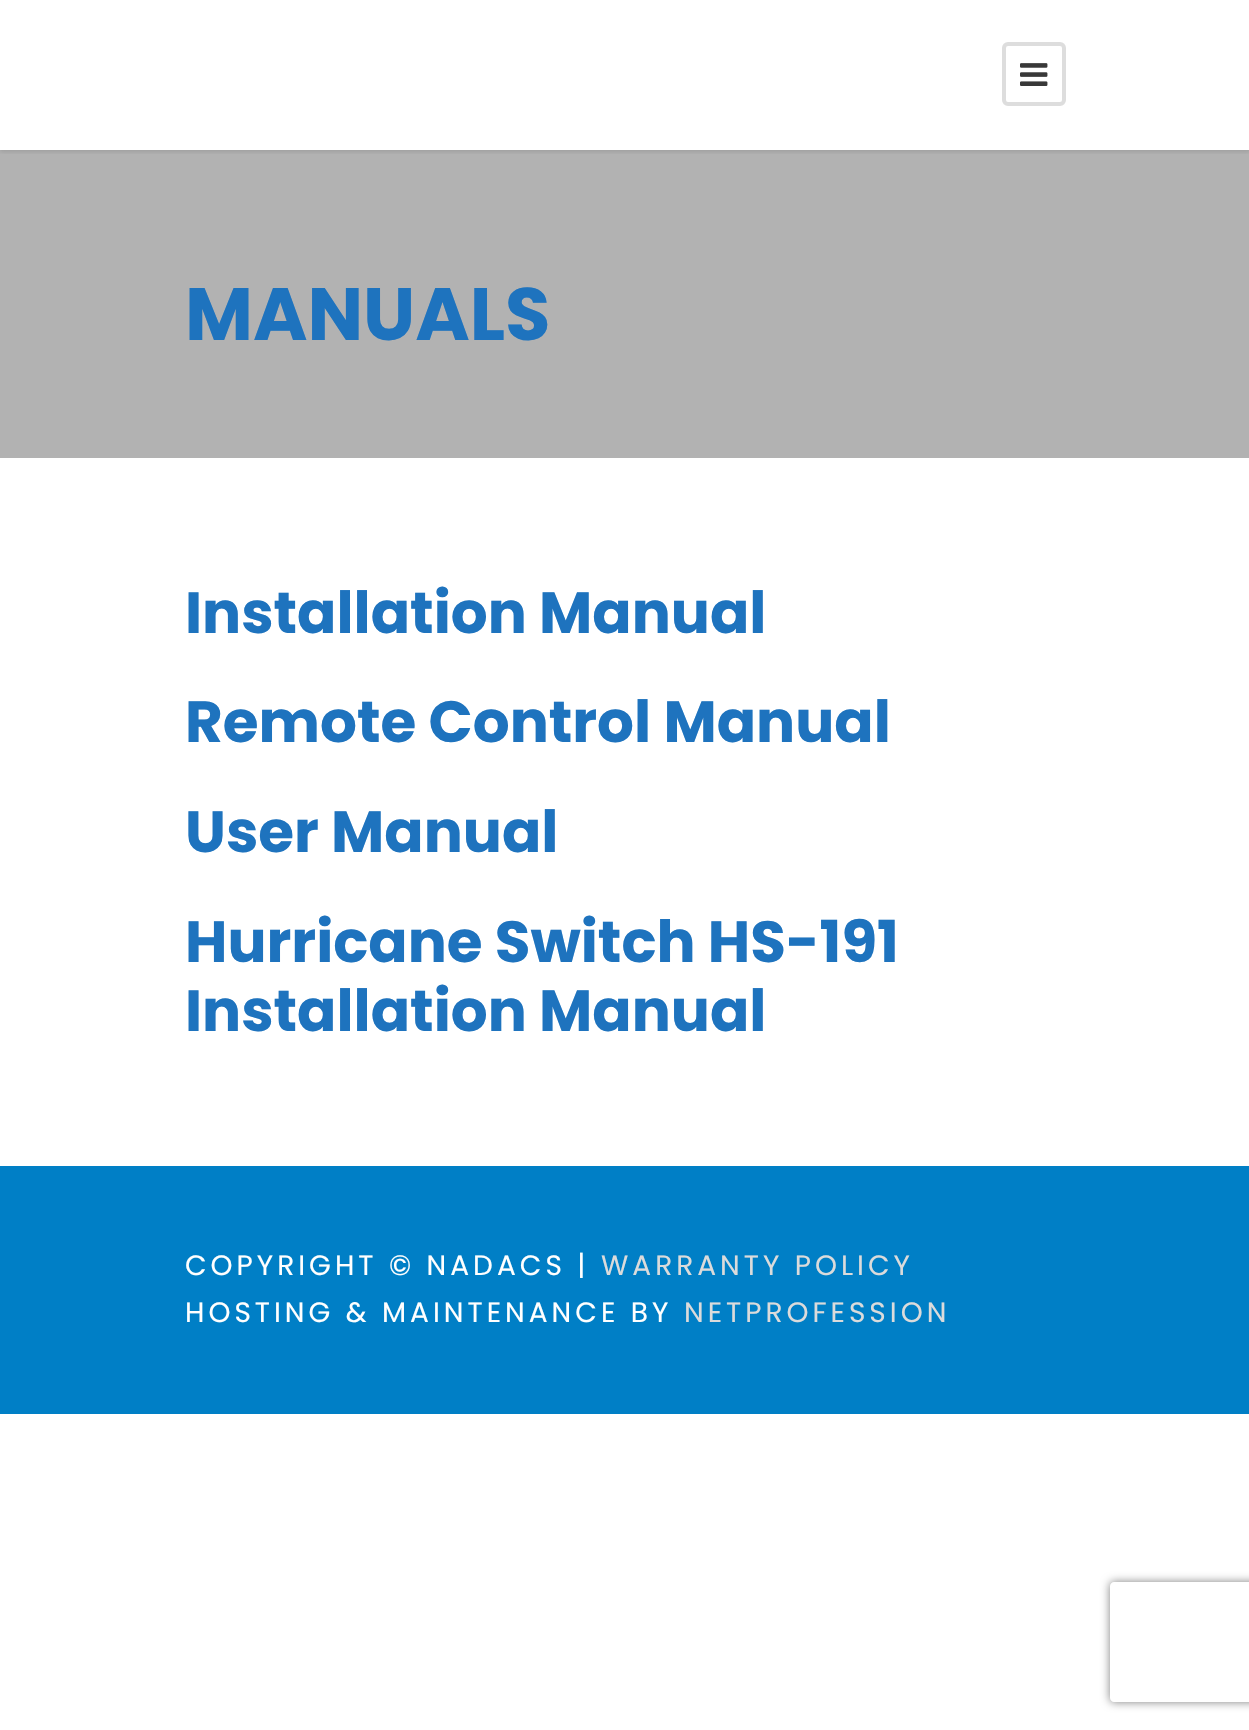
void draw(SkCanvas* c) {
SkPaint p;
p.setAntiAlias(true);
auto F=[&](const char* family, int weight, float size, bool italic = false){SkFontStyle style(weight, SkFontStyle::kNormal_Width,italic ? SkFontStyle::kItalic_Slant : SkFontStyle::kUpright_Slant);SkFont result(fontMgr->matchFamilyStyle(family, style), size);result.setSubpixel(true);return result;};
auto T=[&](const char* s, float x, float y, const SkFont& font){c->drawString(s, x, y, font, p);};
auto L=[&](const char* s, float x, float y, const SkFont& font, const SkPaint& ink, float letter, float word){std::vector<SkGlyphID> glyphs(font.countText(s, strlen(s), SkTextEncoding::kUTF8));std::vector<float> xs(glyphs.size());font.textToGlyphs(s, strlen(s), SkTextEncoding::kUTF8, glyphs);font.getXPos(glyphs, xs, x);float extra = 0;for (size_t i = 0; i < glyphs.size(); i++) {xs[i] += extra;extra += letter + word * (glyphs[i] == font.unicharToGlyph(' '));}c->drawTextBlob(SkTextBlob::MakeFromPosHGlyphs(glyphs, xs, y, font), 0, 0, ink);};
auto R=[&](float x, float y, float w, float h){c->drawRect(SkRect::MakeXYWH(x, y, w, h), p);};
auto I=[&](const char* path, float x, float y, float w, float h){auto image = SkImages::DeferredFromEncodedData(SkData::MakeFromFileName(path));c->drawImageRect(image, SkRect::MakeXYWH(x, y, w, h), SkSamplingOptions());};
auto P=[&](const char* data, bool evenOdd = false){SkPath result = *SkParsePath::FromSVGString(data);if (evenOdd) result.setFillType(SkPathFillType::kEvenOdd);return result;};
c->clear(0xffffffff);
p.setColor(0xffb2b2b2);
R(0,150,1249,308);
c->save();
c->clipRect(SkRect::MakeXYWH(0,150,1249,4));
p.setColor(0x1a000000);
p.setMaskFilter(SkMaskFilter::MakeBlur(kNormal_SkBlurStyle, 2));
c->drawRect(SkRect::MakeXYWH(0,2,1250,150),p);
p.setMaskFilter(nullptr);
c->restore();
p.setStroke(true);
p.setStrokeWidth(4);
p.setColor(0xffdddddd);
c->drawRoundRect(SkRect::MakeXYWH(1004,44,60,60),4,4,p);
I("1.png",1020,63,28,23);
auto f1 = F("Poppins",700,74);
p.setStroke(false);
p.setColor(0xff1e73be);
T("MANUALS",185,340,f1);
auto f2 = F("Poppins",700,58);
T("Installation Manual",185,633,f2);
T("Remote Control Manual",185,742,f2);
T("User Manual",185,852,f2);
T("Hurricane Switch HS-191",185,962,f2);
T("Installation Manual",185,1031,f2);
p.setColor(0xff007fc6);
R(0,1166,1249,248);
auto f3 = F("Poppins",400,28);
p.setColor(0xffffffff);
L("COPYRIGHT © NADACS |",185,1275,f3,p,4,0);
p.setColor(0xffdbdbdb);
L("WARRANTY POLICY",601,1275,f3,p,4,0);
p.setColor(0xffffffff);
L("HOSTING & MAINTENANCE BY",185,1322,f3,p,4,0);
p.setColor(0xffdbdbdb);
L("NETPROFESSION",684,1322,f3,p,4,0);
c->save();
c->clipPath(P("M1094 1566h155v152h-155zm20 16h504c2 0 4 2 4 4v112c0 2-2 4-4 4h-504c-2 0-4-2-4-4v-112c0-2 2-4 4-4z",true),true);
p.setColor(0xff808080);
p.setMaskFilter(SkMaskFilter::MakeBlur(kNormal_SkBlurStyle, 5));
c->drawRoundRect(SkRect::MakeXYWH(1110,1582,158,120),4,4,p);
p.setMaskFilter(nullptr);
c->restore();
}
